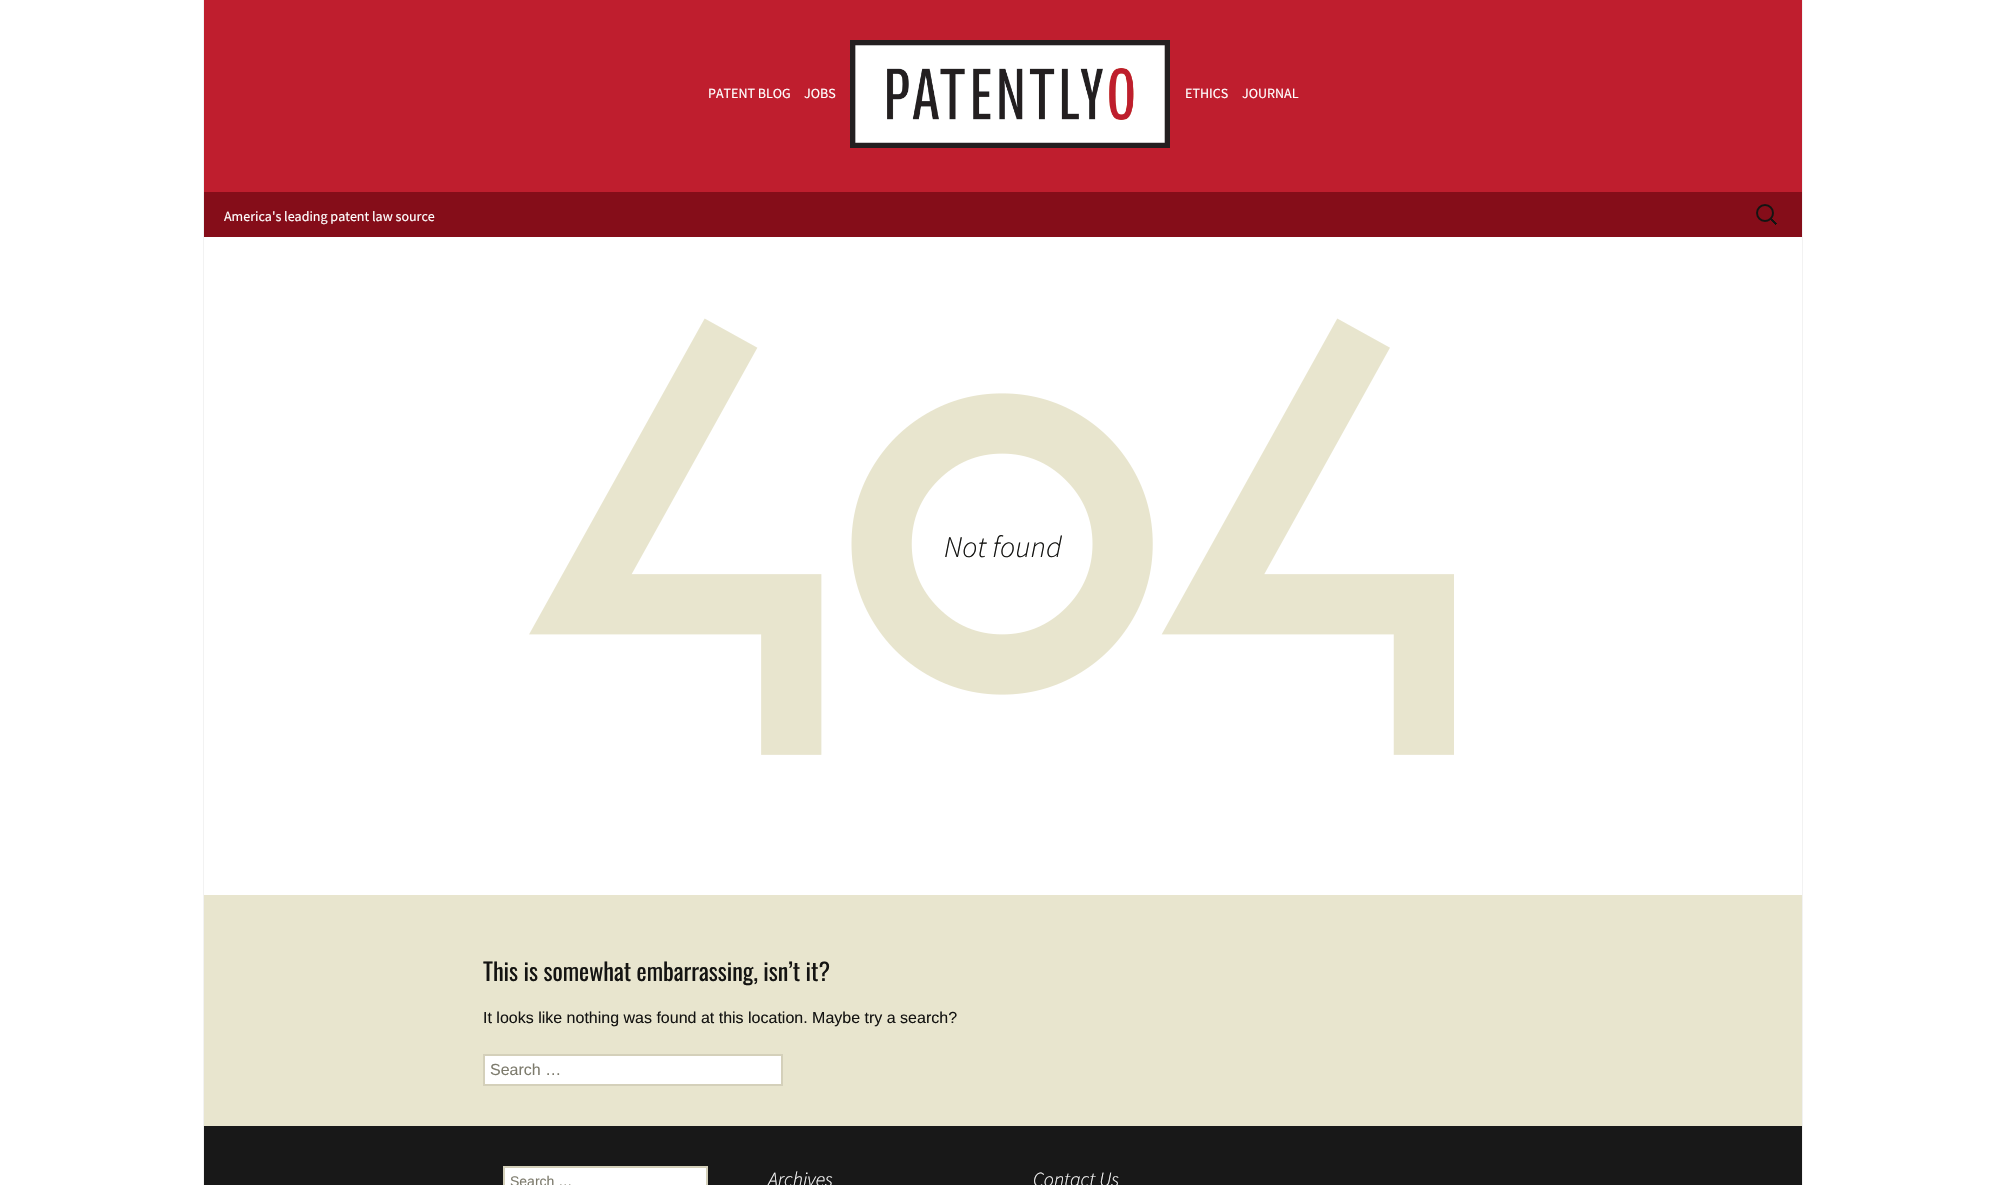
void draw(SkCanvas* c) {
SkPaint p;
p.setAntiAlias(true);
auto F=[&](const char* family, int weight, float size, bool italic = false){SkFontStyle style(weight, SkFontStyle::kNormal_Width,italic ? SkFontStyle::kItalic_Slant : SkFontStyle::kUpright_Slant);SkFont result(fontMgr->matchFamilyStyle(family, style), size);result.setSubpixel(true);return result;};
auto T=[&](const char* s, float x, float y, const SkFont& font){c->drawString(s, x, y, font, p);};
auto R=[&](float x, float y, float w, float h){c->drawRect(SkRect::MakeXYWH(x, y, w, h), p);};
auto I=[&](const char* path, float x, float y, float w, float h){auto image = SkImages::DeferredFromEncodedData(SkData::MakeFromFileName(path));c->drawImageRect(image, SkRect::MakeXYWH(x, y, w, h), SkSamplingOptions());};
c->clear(0xffffffff);
p.setColor(0xfff2f2f2);
R(1802,0,1,1185);
R(203,0,1,1185);
p.setColor(0xffbf1e2e);
R(204,0,1598,192);
auto f1 = F("Source Sans Pro",400,14);
p.setColor(0xffffffff);
T("PATENT BLOG",708,98,f1);
T("JOBS",804,98,f1);
I("1.png",850,40,320,108);
T("ETHICS",1185,98,f1);
T("JOURNAL",1242,98,f1);
p.setColor(0xff850d19);
R(204,192,1598,45);
p.setColor(0xffffffff);
T("America's leading patent law source",224,221,f1);
I("2.png",1756,204,21,21);
auto f2 = F("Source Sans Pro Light",300,30,true);
p.setColor(0xff141412);
T("Not found",944,557,f2);
I("3.png",529,318,925,437);
p.setColor(0xffe8e5ce);
R(204,895,1598,231);
auto f3 = F("Oswald",400,24);
p.setColor(0xff141412);
T("This is somewhat embarrassing, isn’t it?",483,981,f3);
auto f4 = F("Liberation Sans",400,16);
T("It looks like nothing was found at this location. Maybe try a search?",483,1023,f4);
p.setColor(0xffffffff);
c->drawRect(SkRect::MakeXYWH(484,1055,298,30),p);
p.setStroke(true);
p.setStrokeWidth(2);
p.setColor(0xffd4d0ba);
c->drawRect(SkRect::MakeXYWH(484,1055,298,30),p);
p.setStroke(false);
p.setColor(0xff7d7b6d);
T("Search …",490,1075,f4);
p.setColor(0xff181818);
R(204,1126,1598,59);
p.setColor(0xffffffff);
c->drawRect(SkRect::MakeXYWH(504,1167,203,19),p);
p.setStroke(true);
p.setColor(0xffd4d0ba);
c->drawRect(SkRect::MakeXYWH(504,1167,203,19),p);
auto f5 = F("Liberation Sans",400,14);
p.setStroke(false);
p.setColor(0xff7d7b6d);
T("Search …",510,1186,f5);
auto f6 = F("Source Sans Pro Light",300,20,true);
p.setColor(0xffffffff);
T("Archives",768,1186,f6);
T("Contact Us",1033,1186,f6);
}
